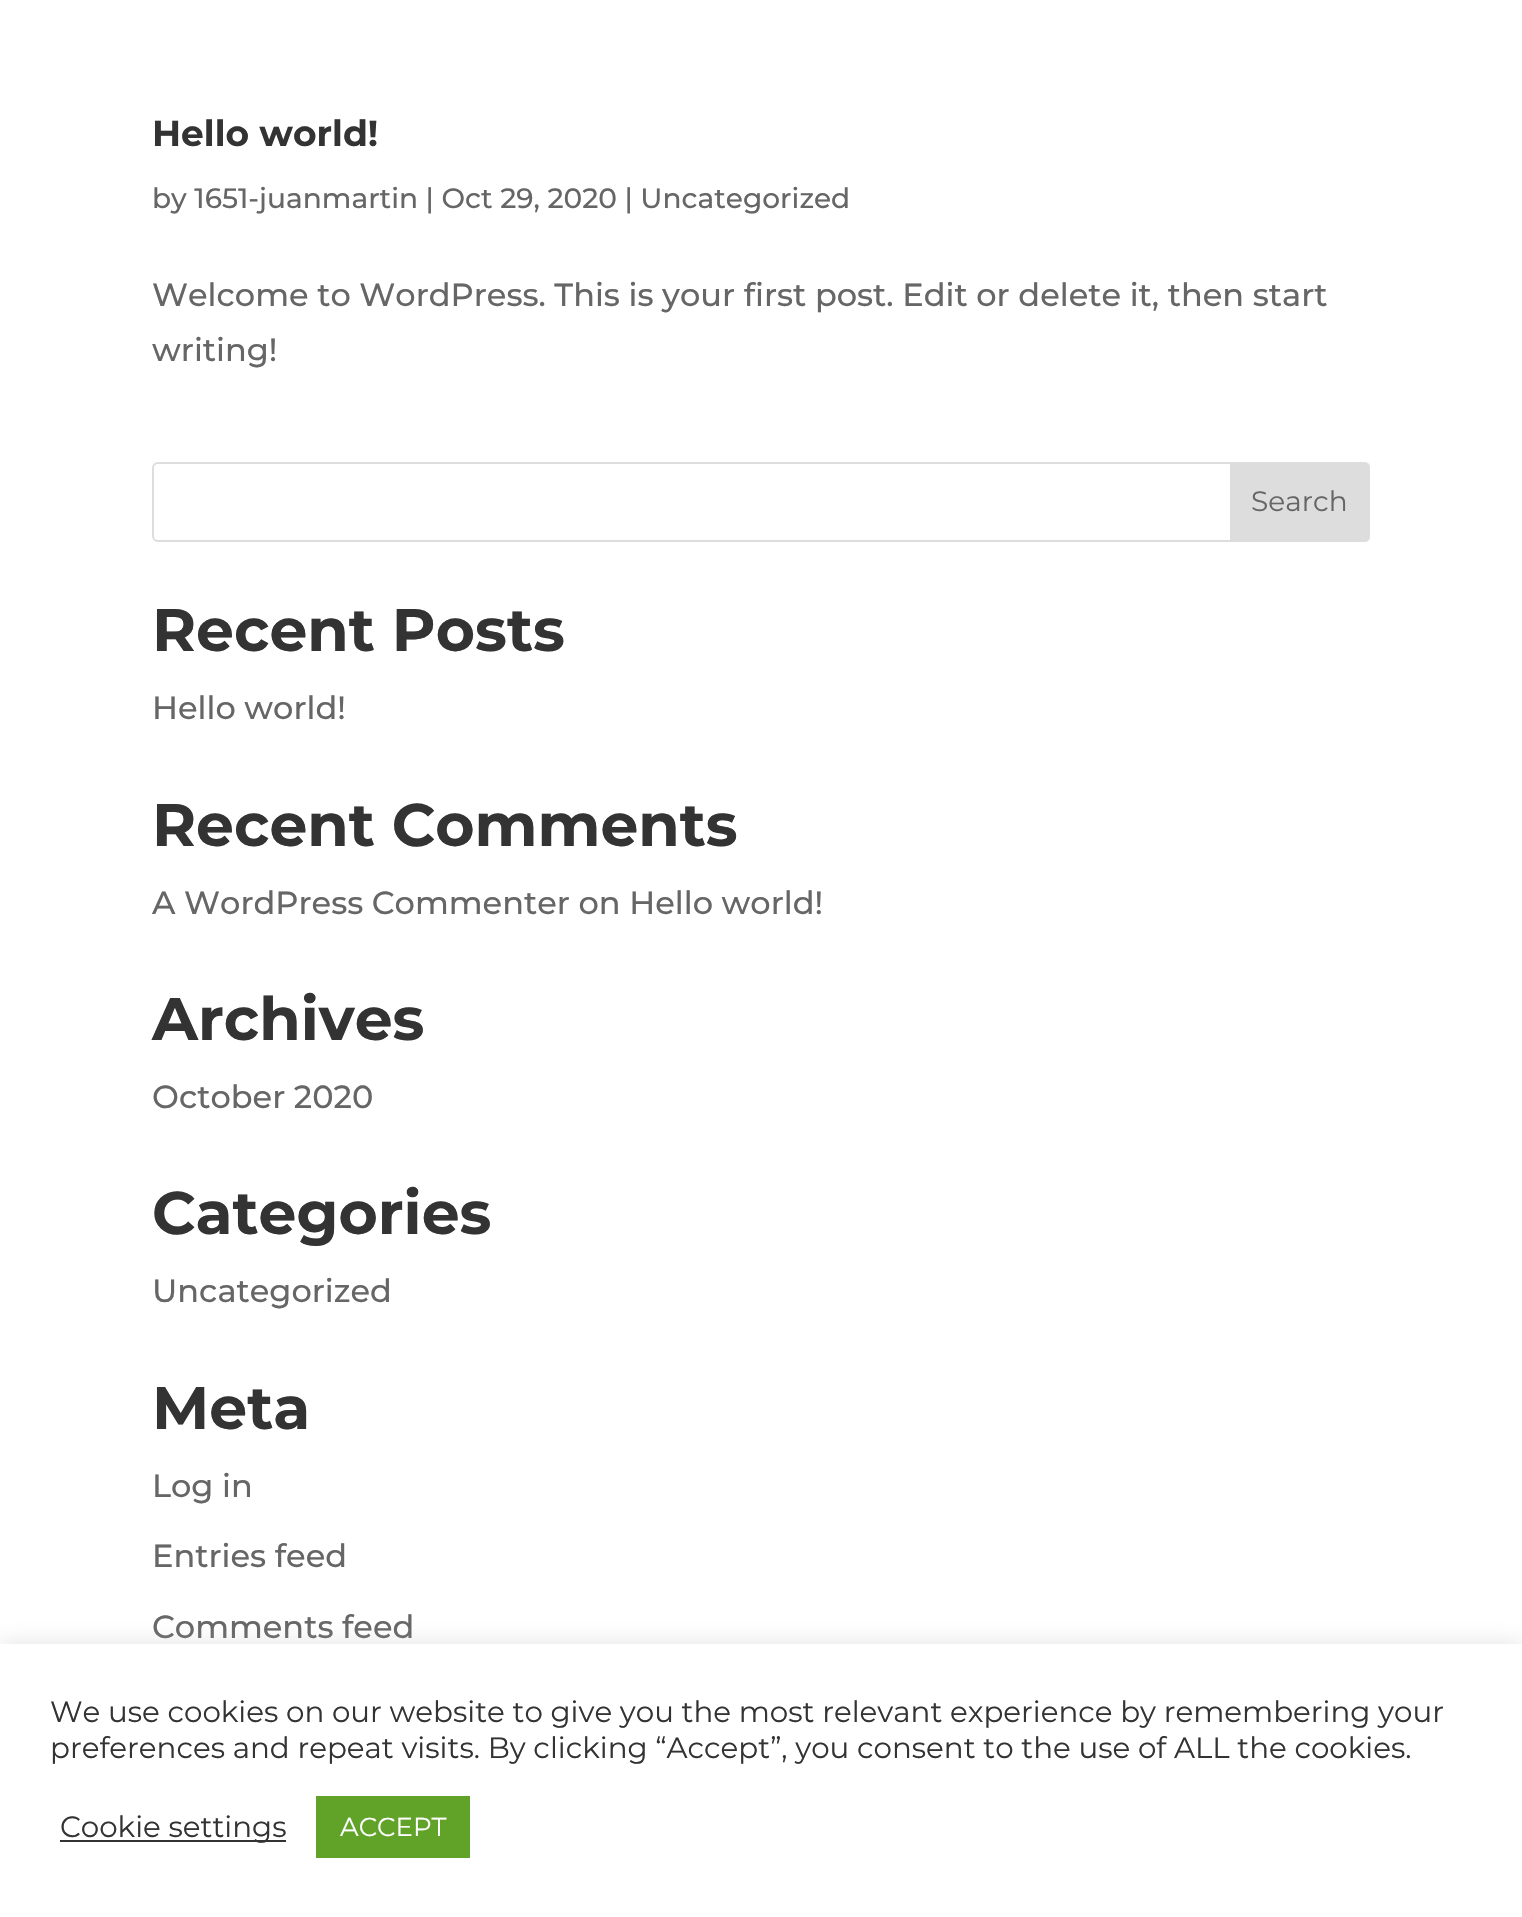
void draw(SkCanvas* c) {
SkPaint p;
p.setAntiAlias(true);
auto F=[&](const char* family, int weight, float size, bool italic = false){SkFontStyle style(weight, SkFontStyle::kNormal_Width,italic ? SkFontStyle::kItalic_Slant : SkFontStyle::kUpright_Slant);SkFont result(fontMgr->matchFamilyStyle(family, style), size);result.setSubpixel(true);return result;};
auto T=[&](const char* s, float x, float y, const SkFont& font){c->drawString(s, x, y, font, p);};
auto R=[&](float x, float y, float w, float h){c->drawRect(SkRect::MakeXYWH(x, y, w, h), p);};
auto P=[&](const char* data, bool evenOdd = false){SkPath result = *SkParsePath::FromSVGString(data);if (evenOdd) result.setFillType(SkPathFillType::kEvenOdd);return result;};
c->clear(0xffffffff);
auto f1 = F("Montserrat",700,36);
p.setColor(0xff333333);
T("Hello world!",152,146,f1);
auto f2 = F("Montserrat",500,28);
p.setColor(0xff666666);
T("by 1651-juanmartin | Oct 29, 2020 | Uncategorized",152,208,f2);
auto f3 = F("Montserrat",500,32);
T("Welcome to WordPress. This is your first post. Edit or delete it, then start",152,306,f3);
T("writing!",152,361,f3);
p.setStroke(true);
p.setStrokeWidth(2);
p.setColor(0xffdddddd);
c->drawRoundRect(SkRect::MakeXYWH(153,463,1216,78),5,5,p);
p.setStroke(false);
c->drawPath(P("M1231 463h133c3 0 5 2 5 5v68c0 3-2 5-5 5h-133z"),p);
p.setStroke(true);
c->drawPath(P("M1231 463h133c3 0 5 2 5 5v68c0 3-2 5-5 5h-133z"),p);
auto f4 = F("Montserrat",400,28);
p.setStroke(false);
p.setColor(0xff666666);
T("Search",1251,511,f4);
auto f5 = F("Montserrat",700,60);
p.setColor(0xff333333);
T("Recent Posts",152,651,f5);
p.setColor(0xff666666);
T("Hello world!",152,719,f3);
p.setColor(0xff333333);
T("Recent Comments",152,846,f5);
p.setColor(0xff666666);
T("A WordPress Commenter on Hello world!",152,914,f3);
p.setColor(0xff333333);
T("Archives",152,1040,f5);
p.setColor(0xff666666);
T("October 2020",152,1108,f3);
p.setColor(0xff333333);
T("Categories",152,1234,f5);
p.setColor(0xff666666);
T("Uncategorized",152,1302,f3);
p.setColor(0xff333333);
T("Meta",152,1429,f5);
p.setColor(0xff666666);
T("Log in",152,1497,f3);
T("Entries feed",152,1567,f3);
T("Comments feed",152,1638,f3);
p.setColor(0x4dacabab);
p.setMaskFilter(SkMaskFilter::MakeBlur(kNormal_SkBlurStyle, 10));
c->drawRect(SkRect::MakeXYWH(0,1642,1522,274),p);
p.setMaskFilter(nullptr);
p.setColor(0xffffffff);
R(0,1644,1522,273);
auto f6 = F("Montserrat",400,29.35);
p.setColor(0xff333333);
T("We use cookies on our website to give you the most relevant experience by remembering your",50,1722,f6);
T("preferences and repeat visits. By clicking “Accept”, you consent to the use of ALL the cookies.",50,1758,f6);
R(60,1840,226,2);
T("Cookie settings",60,1837,f6);
p.setColor(0xff61a229);
R(316,1796,154,62);
auto f7 = F("Montserrat",400,26);
p.setColor(0xffffffff);
T("ACCEPT",340,1836,f7);
}
